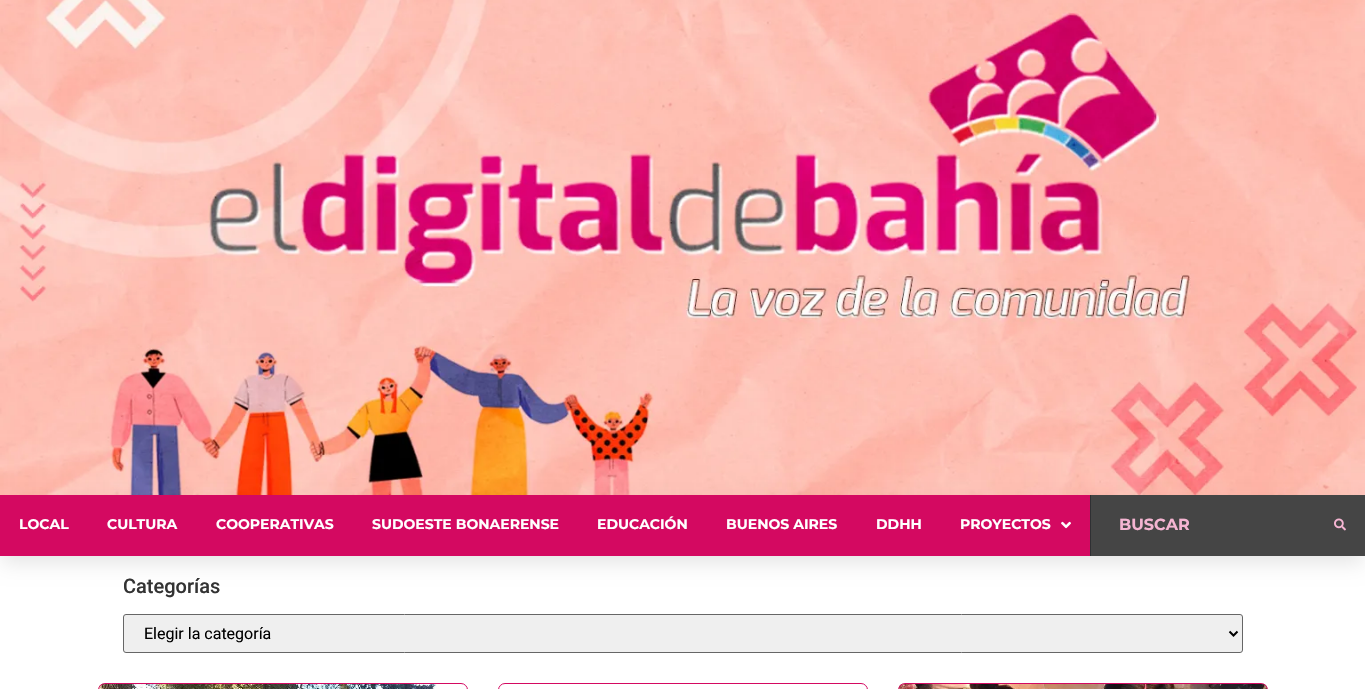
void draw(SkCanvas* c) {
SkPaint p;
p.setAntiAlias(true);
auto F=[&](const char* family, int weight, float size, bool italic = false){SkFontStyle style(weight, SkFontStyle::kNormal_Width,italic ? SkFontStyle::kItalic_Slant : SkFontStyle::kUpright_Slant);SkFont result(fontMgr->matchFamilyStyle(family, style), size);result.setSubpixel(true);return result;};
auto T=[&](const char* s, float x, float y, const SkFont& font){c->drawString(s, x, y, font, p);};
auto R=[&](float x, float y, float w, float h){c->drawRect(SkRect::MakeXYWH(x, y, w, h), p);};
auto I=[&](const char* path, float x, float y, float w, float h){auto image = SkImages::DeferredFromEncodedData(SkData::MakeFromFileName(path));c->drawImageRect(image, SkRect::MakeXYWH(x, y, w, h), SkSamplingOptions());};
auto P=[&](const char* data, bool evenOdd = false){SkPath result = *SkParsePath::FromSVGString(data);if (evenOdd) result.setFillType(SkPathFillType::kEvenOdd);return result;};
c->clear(0xffffffff);
I("1.png",0,0,1365,495);
p.setColor(0x1a000000);
p.setMaskFilter(SkMaskFilter::MakeBlur(kNormal_SkBlurStyle, 10));
c->drawRect(SkRect::MakeXYWH(2,506,1361,57),p);
p.setMaskFilter(nullptr);
p.setColor(0xffd40961);
R(0,495,1090,61);
auto f1 = F("Montserrat",700,14);
p.setColor(0xffffffff);
T("LOCAL",19,529,f1);
T("CULTURA",107,529,f1);
T("COOPERATIVAS",216,529,f1);
T("SUDOESTE BONAERENSE",372,529,f1);
T("EDUCACIÓN",597,529,f1);
T("BUENOS AIRES",726,529,f1);
T("DDHH",876,529,f1);
T("PROYECTOS",960,529,f1);
I("2.png",1061,521,10,8);
p.setColor(0xff454545);
R(1091,495,274,61);
p.setColor(0xff2f3033);
R(1090,495,1,61);
auto f2 = F("Montserrat",700,16);
p.setColor(0xfff5b5d2);
T("BUSCAR",1119,530,f2);
I("3.png",1334,518,12,13);
auto f3 = F("Roboto",500,20);
p.setColor(0xff333333);
T("Categorías",123,593,f3);
p.setColor(0xffefefef);
c->drawRoundRect(SkRect::MakeXYWH(123.5,614.5,1119,38),2.5,2.5,p);
p.setStroke(true);
p.setStrokeWidth(1);
p.setColor(0xff666666);
c->drawRoundRect(SkRect::MakeXYWH(123.5,614.5,1119,38),2.5,2.5,p);
p.setStrokeWidth(2);
p.setColor(0xff000000);
c->drawPath(P("M1229.5 631.5l4 4l4-4"),p);
auto f4 = F("Roboto",400,16);
p.setStroke(false);
T("Elegir la categoría",144,639,f4);
I("4.png",99,684,338,5);
p.setStroke(true);
p.setStrokeWidth(1);
p.setColor(0xffd40961);
c->drawRoundRect(SkRect::MakeXYWH(98.5,683.5,369,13),6.5,6.5,p);
c->drawRoundRect(SkRect::MakeXYWH(498.5,683.5,369,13),6.5,6.5,p);
I("5.png",899,684,368,5);
c->drawRoundRect(SkRect::MakeXYWH(898.5,683.5,369,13),6.5,6.5,p);
}
